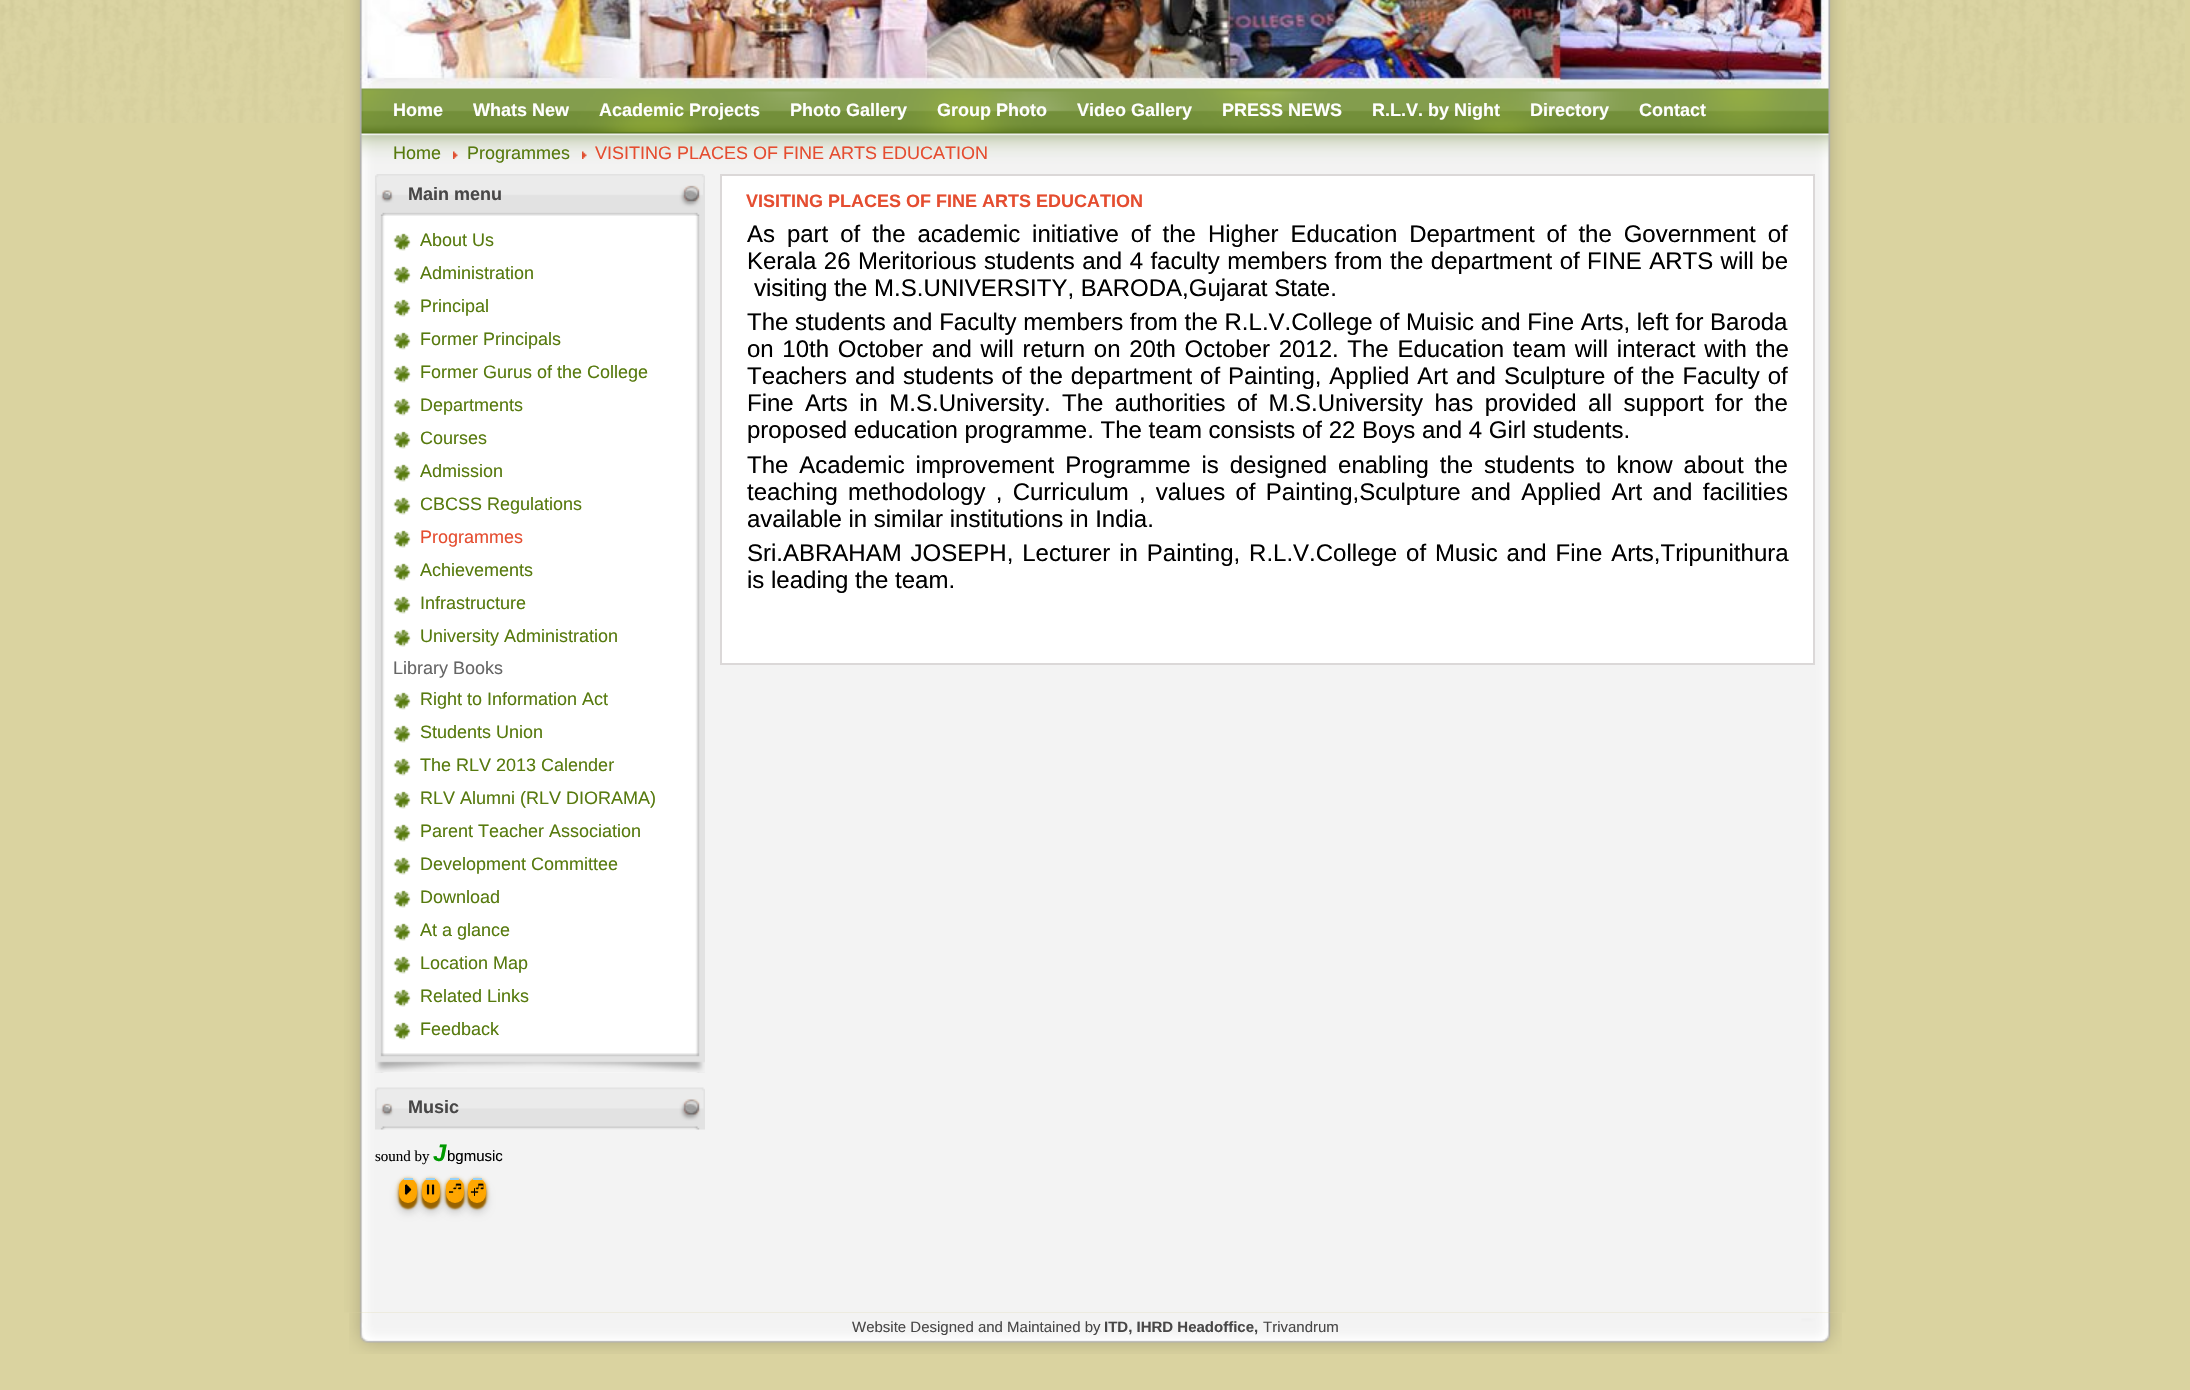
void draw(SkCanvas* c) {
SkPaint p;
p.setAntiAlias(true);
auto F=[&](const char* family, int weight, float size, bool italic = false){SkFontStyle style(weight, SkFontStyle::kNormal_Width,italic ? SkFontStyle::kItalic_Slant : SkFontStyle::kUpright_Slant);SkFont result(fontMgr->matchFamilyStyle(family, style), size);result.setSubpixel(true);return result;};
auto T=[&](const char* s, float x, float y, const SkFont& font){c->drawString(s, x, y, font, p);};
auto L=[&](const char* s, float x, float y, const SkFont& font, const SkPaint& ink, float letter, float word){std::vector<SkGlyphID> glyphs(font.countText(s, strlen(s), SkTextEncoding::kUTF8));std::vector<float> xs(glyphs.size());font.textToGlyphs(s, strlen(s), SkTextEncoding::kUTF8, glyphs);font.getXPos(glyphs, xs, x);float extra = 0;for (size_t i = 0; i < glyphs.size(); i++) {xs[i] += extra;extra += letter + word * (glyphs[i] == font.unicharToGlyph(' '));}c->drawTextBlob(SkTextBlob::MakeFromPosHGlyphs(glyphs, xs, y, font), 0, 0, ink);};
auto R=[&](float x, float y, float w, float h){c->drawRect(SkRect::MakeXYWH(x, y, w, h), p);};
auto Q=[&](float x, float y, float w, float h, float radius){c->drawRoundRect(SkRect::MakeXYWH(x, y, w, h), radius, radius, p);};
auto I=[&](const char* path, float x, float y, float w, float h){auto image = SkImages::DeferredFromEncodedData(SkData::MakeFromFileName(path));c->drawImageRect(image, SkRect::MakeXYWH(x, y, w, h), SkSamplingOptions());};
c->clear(0xffdad3a0);
I("1.png",0,0,2185,123);
I("2.png",344,0,1502,1313);
I("3.png",360,0,1470,89);
I("4.png",360,88,1469,86);
auto f1 = F("Liberation Sans",700,18);
p.setColor(0xffffffff);
T("Home",393,116,f1);
T("Whats New",473,116,f1);
T("Academic Projects",599,116,f1);
T("Photo Gallery",790,116,f1);
T("Group Photo",937,116,f1);
T("Video Gallery",1077,116,f1);
T("PRESS NEWS",1222,116,f1);
T("R.L.V. by Night",1372,116,f1);
T("Directory",1530,116,f1);
T("Contact",1639,116,f1);
auto f2 = F("Liberation Sans",400,18);
p.setColor(0xff577a0e);
T("Home",393,159,f2);
I("5.png",453,151,5,8);
T("Programmes",467,159,f2);
I("5.png",582,151,5,8);
p.setColor(0xffe54d30);
T("VISITING PLACES OF FINE ARTS EDUCATION",595,159,f2);
I("6.png",375,183,330,890);
I("7.png",375,1053,330,20);
I("8.png",375,174,330,9);
I("9.png",377,179,326,37);
p.setColor(0xff484747);
T("Main menu",408,200,f1);
I("10.png",393,233,18,18);
p.setColor(0xff577a0e);
T("About Us",420,246,f2);
I("10.png",393,266,18,18);
T("Administration",420,279,f2);
I("10.png",393,299,18,18);
T("Principal",420,312,f2);
I("10.png",393,332,18,18);
T("Former Principals",420,345,f2);
I("10.png",393,365,18,18);
T("Former Gurus of the College",420,378,f2);
I("10.png",393,398,18,18);
T("Departments",420,411,f2);
I("10.png",393,431,18,18);
T("Courses",420,444,f2);
I("10.png",393,464,18,18);
T("Admission",420,477,f2);
I("10.png",393,497,18,18);
T("CBCSS Regulations",420,510,f2);
I("10.png",393,530,18,18);
p.setColor(0xffe54d30);
T("Programmes",420,543,f2);
I("10.png",393,563,18,18);
p.setColor(0xff577a0e);
T("Achievements",420,576,f2);
I("10.png",393,596,18,18);
T("Infrastructure",420,609,f2);
I("10.png",393,629,18,18);
T("University Administration",420,642,f2);
p.setColor(0xff666666);
T("Library Books",393,674,f2);
I("10.png",393,692,18,18);
p.setColor(0xff577a0e);
T("Right to Information Act",420,705,f2);
I("10.png",393,725,18,18);
T("Students Union",420,738,f2);
I("10.png",393,758,18,18);
T("The RLV 2013 Calender",420,771,f2);
I("10.png",393,791,18,18);
T("RLV Alumni (RLV DIORAMA)",420,804,f2);
I("10.png",393,824,18,18);
T("Parent Teacher Association",420,837,f2);
I("10.png",393,857,18,18);
T("Development Committee",420,870,f2);
I("10.png",393,890,18,18);
T("Download",420,903,f2);
I("10.png",393,923,18,18);
T("At a glance",420,936,f2);
I("10.png",393,956,18,18);
T("Location Map",420,969,f2);
I("10.png",393,989,18,18);
T("Related Links",420,1002,f2);
I("10.png",393,1022,18,18);
T("Feedback",420,1035,f2);
I("11.png",375,1087,330,43);
p.setColor(0xff484747);
T("Music",408,1113,f1);
auto f3 = F("Liberation Serif",400,15);
p.setColor(0xff000000);
T("sound by",375,1161,f3);
auto f4 = F("Liberation Sans",700,24,true);
p.setColor(0xff009900);
T("J",433,1161,f4);
auto f5 = F("Liberation Sans",400,15);
p.setColor(0xff000000);
T("bgmusic",447,1161,f5);
p.setColor(0xffcc8500);
p.setMaskFilter(SkMaskFilter::MakeBlur(kNormal_SkBlurStyle, 2));
c->drawRoundRect(SkRect::MakeXYWH(399,1179,18,26),9,9,p);
p.setMaskFilter(nullptr);
p.setColor(0x33000000);
p.setMaskFilter(SkMaskFilter::MakeBlur(kNormal_SkBlurStyle, 4));
c->drawRoundRect(SkRect::MakeXYWH(399,1187,18,25),9,9,p);
p.setMaskFilter(nullptr);
p.setColor(0xff996300);
p.setMaskFilter(SkMaskFilter::MakeBlur(kNormal_SkBlurStyle, 1));
c->drawRoundRect(SkRect::MakeXYWH(399,1184,18,25),9,9,p);
p.setMaskFilter(nullptr);
p.setColor(0xffffa600);
Q(399,1178,18,25,9);
p.setColor(0xffcc8500);
p.setMaskFilter(SkMaskFilter::MakeBlur(kNormal_SkBlurStyle, 2));
c->drawRoundRect(SkRect::MakeXYWH(422,1179,18,26),9,9,p);
p.setMaskFilter(nullptr);
p.setColor(0xff96d1f8);
R(404,1178,9,2);
I("12.png",404,1184,8,11);
p.setColor(0x33000000);
p.setMaskFilter(SkMaskFilter::MakeBlur(kNormal_SkBlurStyle, 4));
c->drawRoundRect(SkRect::MakeXYWH(422,1187,18,25),9,9,p);
p.setMaskFilter(nullptr);
p.setColor(0xff996300);
p.setMaskFilter(SkMaskFilter::MakeBlur(kNormal_SkBlurStyle, 1));
c->drawRoundRect(SkRect::MakeXYWH(422,1184,18,25),9,9,p);
p.setMaskFilter(nullptr);
p.setColor(0xffffa600);
Q(422,1178,18,25,9);
p.setColor(0xffcc8500);
p.setMaskFilter(SkMaskFilter::MakeBlur(kNormal_SkBlurStyle, 2));
c->drawRoundRect(SkRect::MakeXYWH(446,1179,18,26),9,9,p);
p.setMaskFilter(nullptr);
p.setColor(0xff96d1f8);
R(426,1178,9,2);
I("13.png",426,1184,9,11);
p.setColor(0x33000000);
p.setMaskFilter(SkMaskFilter::MakeBlur(kNormal_SkBlurStyle, 4));
c->drawRoundRect(SkRect::MakeXYWH(446,1187,18,25),9,9,p);
p.setMaskFilter(nullptr);
p.setColor(0xff996300);
p.setMaskFilter(SkMaskFilter::MakeBlur(kNormal_SkBlurStyle, 1));
c->drawRoundRect(SkRect::MakeXYWH(446,1184,18,25),9,9,p);
p.setMaskFilter(nullptr);
p.setColor(0xffffa600);
Q(446,1178,18,25,9);
I("14.png",449,1183,13,10);
p.setColor(0xffcc8500);
p.setMaskFilter(SkMaskFilter::MakeBlur(kNormal_SkBlurStyle, 2));
c->drawRoundRect(SkRect::MakeXYWH(468,1179,18,26),9,9,p);
p.setMaskFilter(nullptr);
p.setColor(0xff96d1f8);
R(450,1178,9,2);
p.setColor(0x33000000);
p.setMaskFilter(SkMaskFilter::MakeBlur(kNormal_SkBlurStyle, 4));
c->drawRoundRect(SkRect::MakeXYWH(468,1187,18,25),9,9,p);
p.setMaskFilter(nullptr);
p.setColor(0xff996300);
p.setMaskFilter(SkMaskFilter::MakeBlur(kNormal_SkBlurStyle, 1));
c->drawRoundRect(SkRect::MakeXYWH(468,1184,18,25),9,9,p);
p.setMaskFilter(nullptr);
p.setColor(0xffffa600);
Q(468,1178,18,25,9);
p.setColor(0xff96d1f8);
R(473,1178,9,2);
I("15.png",470,1183,14,13);
p.setColor(0xffffffff);
c->drawRect(SkRect::MakeXYWH(721,175,1093,489),p);
p.setStroke(true);
p.setStrokeWidth(2);
p.setColor(0xffdbd8d8);
c->drawRect(SkRect::MakeXYWH(721,175,1093,489),p);
p.setStroke(false);
p.setColor(0xffe54d30);
T("VISITING PLACES OF FINE ARTS EDUCATION",746,207,f1);
auto f6 = F("Liberation Sans",400,24);
p.setColor(0xff000000);
L("As part of the academic initiative of the Higher Education Department of the Government of",747,242,f6,p,0,5.25);
L("Kerala 26 Meritorious students and 4 faculty members from the department of FINE ARTS will be",747,269,f6,p,0,.75);
T("visiting the M.S.UNIVERSITY, BARODA,Gujarat State.",754,296,f6);
T("The students and Faculty members from the R.L.V.College of Muisic and Fine Arts, left for Baroda",747,330,f6);
L("on 10th October and will return on 20th October 2012. The Education team will interact with the",747,357,f6,p,0,2);
L("Teachers and students of the department of Painting, Applied Art and Sculpture of the Faculty of",747,384,f6,p,0,1.25);
L("Fine Arts in M.S.University. The authorities of M.S.University has provided all support for the",747,411,f6,p,0,4.75);
T("proposed education programme. The team consists of 22 Boys and 4 Girl students.",747,438,f6);
L("The Academic improvement Programme is designed enabling the students to know about the",747,473,f6,p,0,4.25);
L("teaching methodology , Curriculum , values of Painting,Sculpture and Applied Art and facilities",747,500,f6,p,0,3.6);
T("available in similar institutions in India.",747,527,f6);
L("Sri.ABRAHAM JOSEPH, Lecturer in Painting, R.L.V.College of Music and Fine Arts,Tripunithura",747,561,f6,p,0,2.25);
T("is leading the team.",747,588,f6);
I("16.png",349,1312,1493,42);
p.setColor(0xff484747);
T("Website Designed and Maintained by",852,1332,f5);
auto f7 = F("Liberation Sans",700,15);
T("ITD, IHRD Headoffice,",1104,1332,f7);
T("Trivandrum",1263,1332,f5);
}
